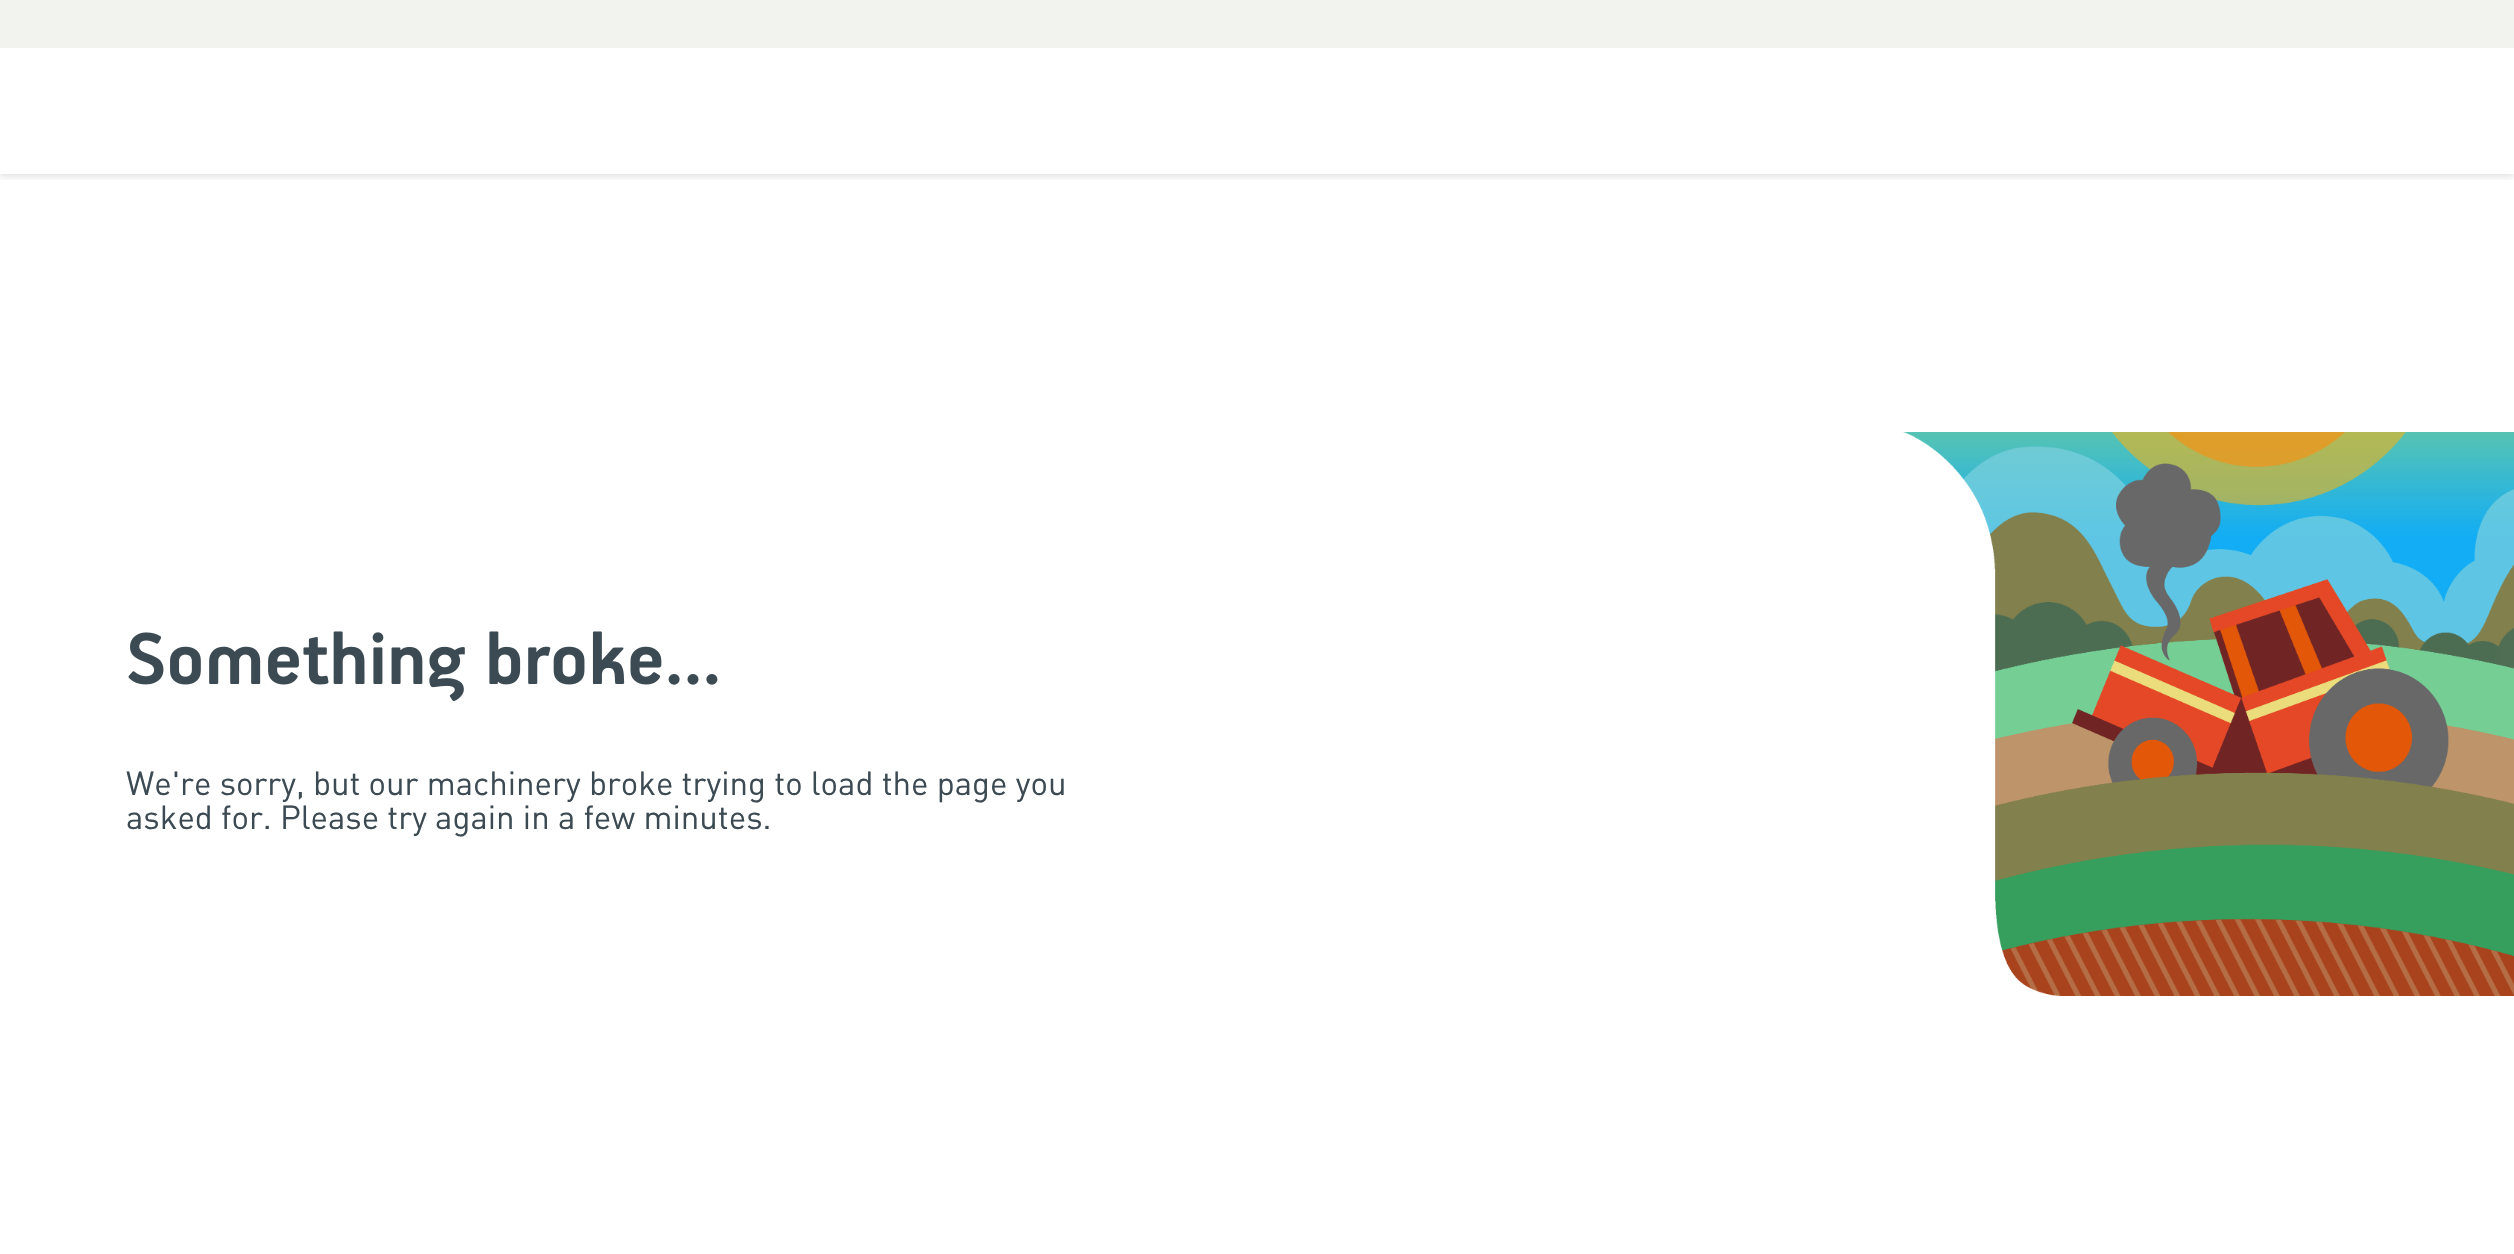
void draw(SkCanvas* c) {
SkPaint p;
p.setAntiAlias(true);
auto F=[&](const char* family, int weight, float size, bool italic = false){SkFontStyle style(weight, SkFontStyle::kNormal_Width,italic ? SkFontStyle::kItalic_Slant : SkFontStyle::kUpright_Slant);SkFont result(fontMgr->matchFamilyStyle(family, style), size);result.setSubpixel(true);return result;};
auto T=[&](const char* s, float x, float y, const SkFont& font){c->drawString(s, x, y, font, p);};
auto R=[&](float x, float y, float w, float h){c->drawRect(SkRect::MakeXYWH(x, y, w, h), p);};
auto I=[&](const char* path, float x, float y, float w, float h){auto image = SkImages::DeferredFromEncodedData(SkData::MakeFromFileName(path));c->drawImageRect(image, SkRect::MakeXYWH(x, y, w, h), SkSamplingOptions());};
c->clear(0xffffffff);
c->save();
c->clipRect(SkRect::MakeXYWH(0,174,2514,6));
p.setColor(0x1a000000);
p.setMaskFilter(SkMaskFilter::MakeBlur(kNormal_SkBlurStyle, 3));
c->drawRect(SkRect::MakeXYWH(0,3,2514,174),p);
p.setMaskFilter(nullptr);
c->restore();
p.setColor(0xfff2f3ee);
R(0,0,2514,48);
I("1.png",128,631,590,70);
auto f1 = F("DIN",400,33);
p.setColor(0xff3c4a53);
T("We're sorry, but our machinery broke trying to load the page you",126,795,f1);
T("asked for. Please try again in a few minutes.",126,829,f1);
I("2.png",1903,432,611,564);
}
